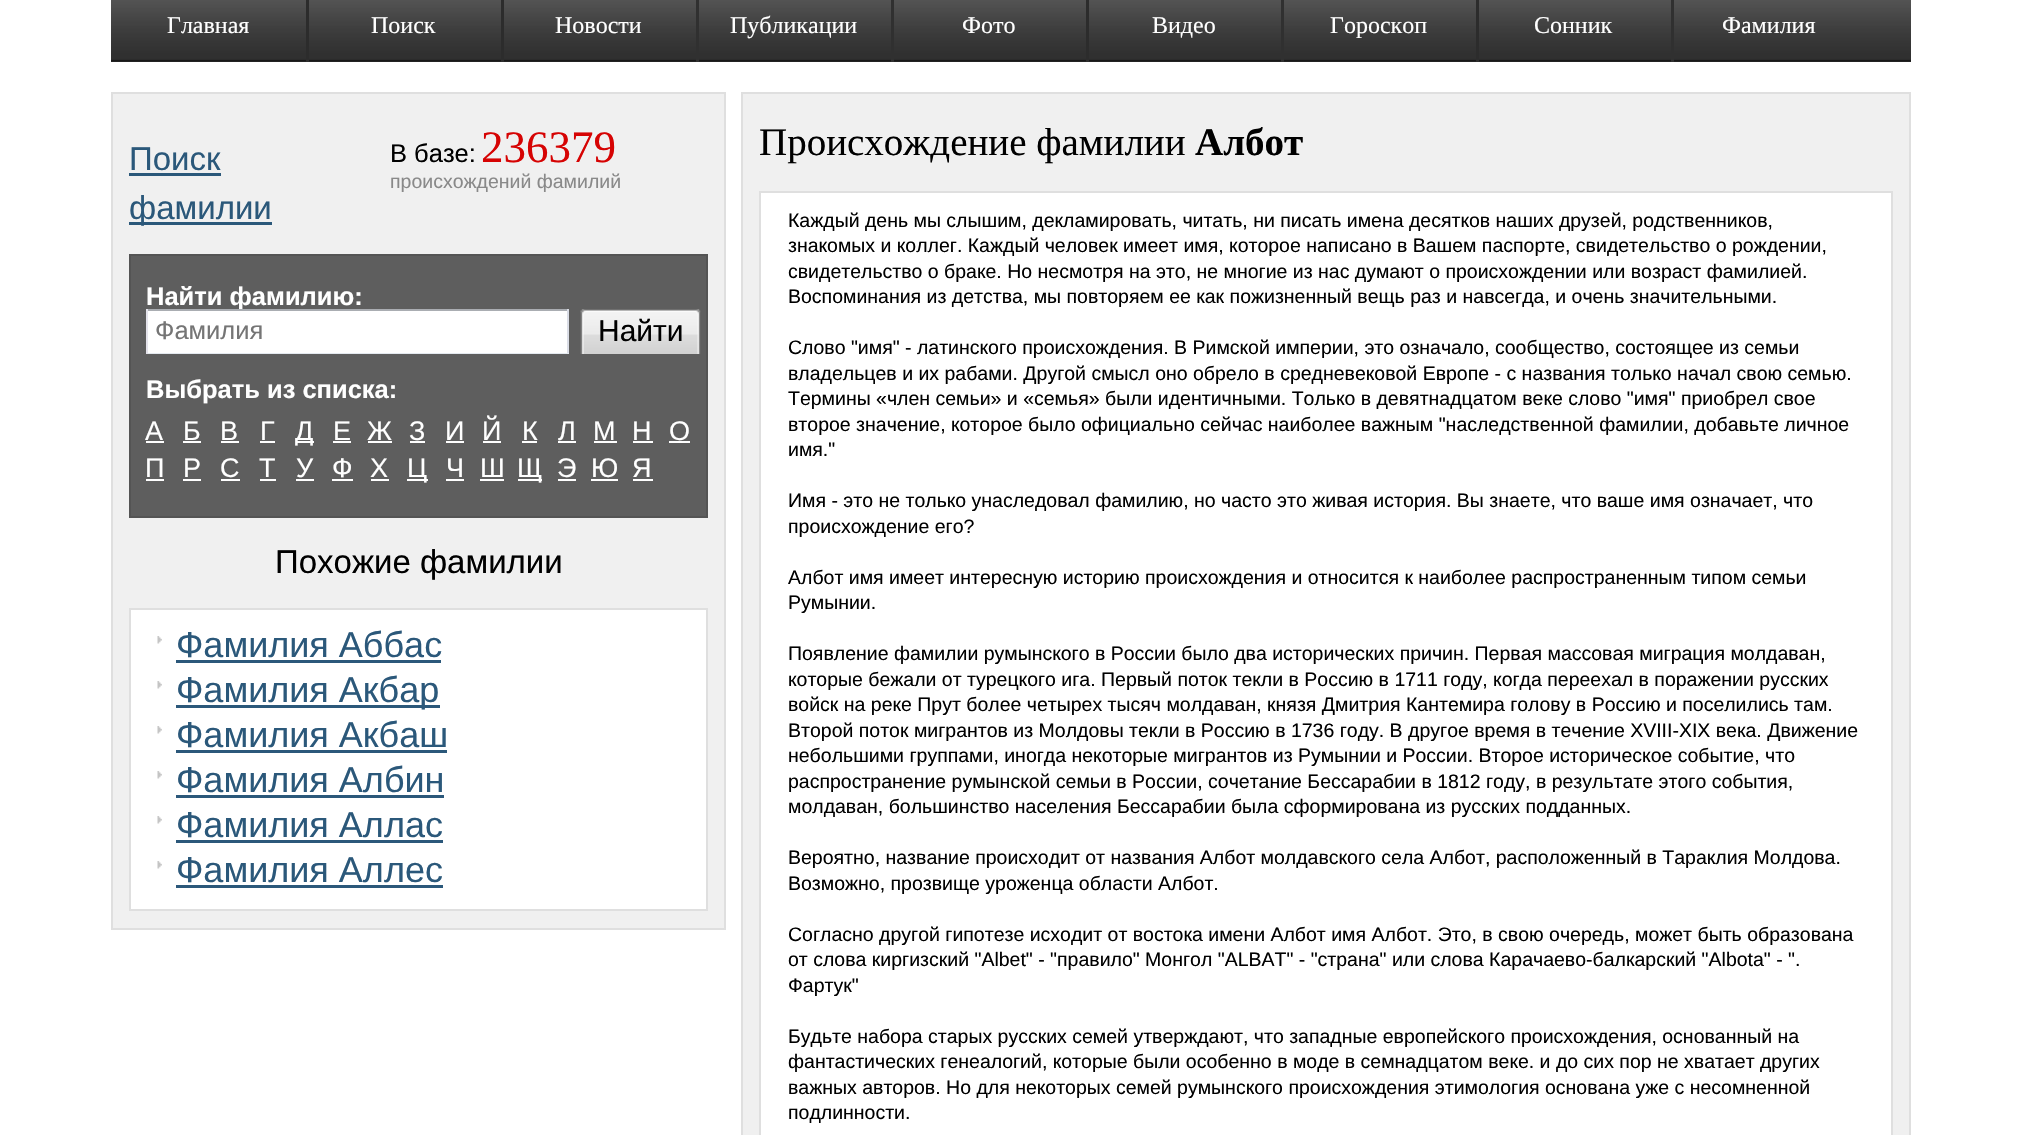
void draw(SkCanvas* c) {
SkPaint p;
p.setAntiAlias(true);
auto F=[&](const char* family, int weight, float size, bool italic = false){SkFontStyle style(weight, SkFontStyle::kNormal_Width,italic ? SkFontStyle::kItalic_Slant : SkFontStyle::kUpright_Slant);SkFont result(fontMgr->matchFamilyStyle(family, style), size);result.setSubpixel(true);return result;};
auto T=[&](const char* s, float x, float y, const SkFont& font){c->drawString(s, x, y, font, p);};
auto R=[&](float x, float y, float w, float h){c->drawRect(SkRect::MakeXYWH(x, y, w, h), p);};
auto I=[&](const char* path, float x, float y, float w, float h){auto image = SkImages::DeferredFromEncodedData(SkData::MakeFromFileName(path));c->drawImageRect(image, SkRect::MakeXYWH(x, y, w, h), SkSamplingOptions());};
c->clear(0xffffffff);
p.setColor(0xff333333);
R(111,61,1800,1);
I("1.png",111,0,1800,62);
auto f1 = F("Liberation Serif",400,24);
p.setColor(0xffffffff);
T("Главная",167,33,f1);
p.setColor(0xff2c2c2c);
R(306,0,3,62);
p.setColor(0xffffffff);
T("Поиск",371,33,f1);
p.setColor(0xff2c2c2c);
R(501,0,3,62);
p.setColor(0xffffffff);
T("Новости",555,33,f1);
p.setColor(0xff303030);
R(696,0,3,62);
p.setColor(0xffffffff);
T("Публикации",730,33,f1);
p.setColor(0xff303030);
R(891,0,3,62);
p.setColor(0xffffffff);
T("Фото",962,33,f1);
p.setColor(0xff2c2c2c);
R(1086,0,3,62);
p.setColor(0xffffffff);
T("Видео",1152,33,f1);
p.setColor(0xff303030);
R(1281,0,3,62);
p.setColor(0xffffffff);
T("Гороскоп",1330,33,f1);
p.setColor(0xff2c2c2c);
R(1476,0,3,62);
p.setColor(0xffffffff);
T("Сонник",1534,33,f1);
p.setColor(0xff303030);
R(1671,0,3,62);
p.setColor(0xffffffff);
T("Фамилия",1722,33,f1);
p.setColor(0xfff0f0f0);
c->drawRect(SkRect::MakeXYWH(112,93,613,836),p);
p.setStroke(true);
p.setStrokeWidth(2);
p.setColor(0xffdfdfdf);
c->drawRect(SkRect::MakeXYWH(112,93,613,836),p);
auto f2 = F("Liberation Sans",400,33);
p.setStroke(false);
p.setColor(0xff2b587a);
T("Поиск",129,170,f2);
R(129,173,92,3);
R(129,222,143,3);
T("фамилии",129,219,f2);
auto f3 = F("Liberation Sans",400,25.5);
p.setColor(0xff000000);
T("В базе:",390,162,f3);
auto f4 = F("Liberation Serif",400,45);
p.setColor(0xffd60303);
T("236379",481,162,f4);
auto f5 = F("Liberation Sans",400,19.5);
p.setColor(0xff898989);
T("происхождений фамилий",390,188,f5);
p.setColor(0xff5e5e5e);
c->drawRect(SkRect::MakeXYWH(130,255,577,262),p);
p.setStroke(true);
p.setColor(0xff545454);
c->drawRect(SkRect::MakeXYWH(130,255,577,262),p);
auto f6 = F("Liberation Sans",700,25.5);
p.setStroke(false);
p.setColor(0xffffffff);
T("Найти фамилию:",146,305,f6);
R(148,311,419,42);
p.setColor(0xffaaadb2);
R(146,309,423,2);
p.setColor(0xffdadde6);
R(567,309,2,45);
p.setColor(0xffe4e9ef);
R(146,353,423,1);
p.setColor(0xffe4e3eb);
R(146,309,2,45);
p.setColor(0xff757575);
T("Фамилия",155,339,f3);
I("2.png",580,309,119,45);
I("3.png",696,309,5,45);
auto f7 = F("Liberation Sans",400,30);
p.setColor(0xff000000);
T("Найти",598,341,f7);
p.setColor(0xffffffff);
T("Выбрать из списка:",146,398,f6);
auto f8 = F("Liberation Sans",400,27);
T("А",145,440,f8);
R(146,441,18,2);
T("Б",183,440,f8);
R(183,441,18,2);
T("В",220,440,f8);
R(221,441,18,2);
T("Г",260,440,f8);
R(260,441,15,2);
R(296,441,18,2);
T("Д",295,440,f8);
T("Е",333,440,f8);
R(333,441,18,2);
T("Ж",367,440,f8);
R(368,441,24,2);
T("З",409,440,f8);
R(410,441,15,2);
T("И",445,440,f8);
R(446,441,18,2);
T("Й",482,440,f8);
R(483,441,18,2);
T("К",522,440,f8);
R(522,441,15,2);
T("Л",558,440,f8);
R(558,441,18,2);
T("М",593,440,f8);
R(594,441,23,2);
T("Н",632,440,f8);
R(633,441,20,2);
T("О",669,440,f8);
R(669,441,21,2);
T("П",145,477,f8);
R(146,479,18,2);
T("Р",183,477,f8);
R(183,479,18,2);
T("С",220,477,f8);
R(221,479,19,2);
T("Т",259,477,f8);
R(260,479,16,2);
T("У",296,477,f8);
R(296,479,18,2);
T("Ф",332,477,f8);
R(332,479,21,2);
T("Х",370,477,f8);
R(371,479,18,2);
R(407,479,21,2);
T("Ц",407,477,f8);
T("Ч",446,477,f8);
R(446,479,18,2);
T("Ш",480,477,f8);
R(480,479,24,2);
R(518,479,24,2);
T("Щ",517,477,f8);
T("Э",557,477,f8);
R(558,479,18,2);
T("Ю",591,477,f8);
R(591,479,27,2);
T("Я",632,477,f8);
R(633,479,20,2);
p.setColor(0xff000000);
T("Похожие фамилии",275,573,f2);
p.setColor(0xffffffff);
c->drawRect(SkRect::MakeXYWH(130,609,577,301),p);
p.setStroke(true);
p.setColor(0xffdfdfdf);
c->drawRect(SkRect::MakeXYWH(130,609,577,301),p);
I("4.png",157,636,5,8);
auto f9 = F("Liberation Sans",400,36);
p.setStroke(false);
p.setColor(0xff2b587a);
T("Фамилия Аббас",176,657,f9);
R(176,660,265,3);
I("4.png",157,681,5,8);
R(176,705,264,3);
T("Фамилия Акбар",176,702,f9);
I("4.png",157,726,5,8);
T("Фамилия Акбаш",176,747,f9);
R(176,750,271,3);
I("4.png",157,771,5,8);
T("Фамилия Албин",176,792,f9);
R(176,795,268,3);
I("4.png",157,816,5,8);
T("Фамилия Аллас",176,837,f9);
R(176,840,267,3);
I("4.png",157,861,5,8);
T("Фамилия Аллес",176,882,f9);
R(176,885,267,3);
p.setColor(0xfff0f0f0);
c->drawRect(SkRect::MakeXYWH(742,93,1168,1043),p);
p.setStroke(true);
p.setColor(0xffdfdfdf);
c->drawRect(SkRect::MakeXYWH(742,93,1168,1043),p);
auto f10 = F("Liberation Serif",400,39);
p.setStroke(false);
p.setColor(0xff000000);
T("Происхождение фамилии",759,155,f10);
auto f11 = F("Liberation Serif",700,39);
T("Албот",1195,155,f11);
p.setColor(0xffffffff);
c->drawRect(SkRect::MakeXYWH(760,192,1132,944),p);
p.setStroke(true);
p.setColor(0xffdfdfdf);
c->drawRect(SkRect::MakeXYWH(760,192,1132,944),p);
p.setStroke(false);
p.setColor(0xff000000);
T("Каждый день мы слышим, декламировать, читать, ни писать имена десятков наших друзей, родственников,",788,227,f5);
T("знакомых и коллег. Каждый человек имеет имя, которое написано в Вашем паспорте, свидетельство о рождении,",788,252,f5);
T("свидетельство о браке. Но несмотря на это, не многие из нас думают о происхождении или возраст фамилией.",788,278,f5);
T("Воспоминания из детства, мы повторяем ее как пожизненный вещь раз и навсегда, и очень значительными.",788,303,f5);
T("Слово \"имя\" - латинского происхождения. В Римской империи, это означало, сообщество, состоящее из семьи",788,354,f5);
T("владельцев и их рабами. Другой смысл оно обрело в средневековой Европе - с названия только начал свою семью.",788,380,f5);
T("Термины «член семьи» и «семья» были идентичными. Только в девятнадцатом веке слово \"имя\" приобрел свое",788,405,f5);
T("второе значение, которое было официально сейчас наиболее важным \"наследственной фамилии, добавьте личное",788,431,f5);
T("имя.\"",788,456,f5);
T("Имя - это не только унаследовал фамилию, но часто это живая история. Вы знаете, что ваше имя означает, что",788,507,f5);
T("происхождение его?",788,533,f5);
T("Албот имя имеет интересную историю происхождения и относится к наиболее распространенным типом семьи",788,584,f5);
T("Румынии.",788,609,f5);
T("Появление фамилии румынского в России было два исторических причин. Первая массовая миграция молдаван,",788,660,f5);
T("которые бежали от турецкого ига. Первый поток текли в Россию в 1711 году, когда переехал в поражении русских",788,686,f5);
T("войск на реке Прут более четырех тысяч молдаван, князя Дмитрия Кантемира голову в Россию и поселились там.",788,711,f5);
T("Второй поток мигрантов из Молдовы текли в Россию в 1736 году. В другое время в течение XVIII-XIX века. Движение",788,737,f5);
T("небольшими группами, иногда некоторые мигрантов из Румынии и России. Второе историческое событие, что",788,762,f5);
T("распространение румынской семьи в России, сочетание Бессарабии в 1812 году, в результате этого события,",788,788,f5);
T("молдаван, большинство населения Бессарабии была сформирована из русских подданных.",788,813,f5);
T("Вероятно, название происходит от названия Албот молдавского села Албот, расположенный в Тараклия Молдова.",788,864,f5);
T("Возможно, прозвище уроженца области Албот.",788,890,f5);
T("Согласно другой гипотезе исходит от востока имени Албот имя Албот. Это, в свою очередь, может быть образована",788,941,f5);
T("от слова киргизский \"Albet\" - \"правило\" Монгол \"ALBAT\" - \"страна\" или слова Карачаево-балкарский \"Albota\" - \".",788,966,f5);
T("Фартук\"",788,992,f5);
T("Будьте набора старых русских семей утверждают, что западные европейского происхождения, основанный на",788,1043,f5);
T("фантастических генеалогий, которые были особенно в моде в семнадцатом веке. и до сих пор не хватает других",788,1068,f5);
T("важных авторов. Но для некоторых семей румынского происхождения этимология основана уже с несомненной",788,1094,f5);
T("подлинности.",788,1119,f5);
}
